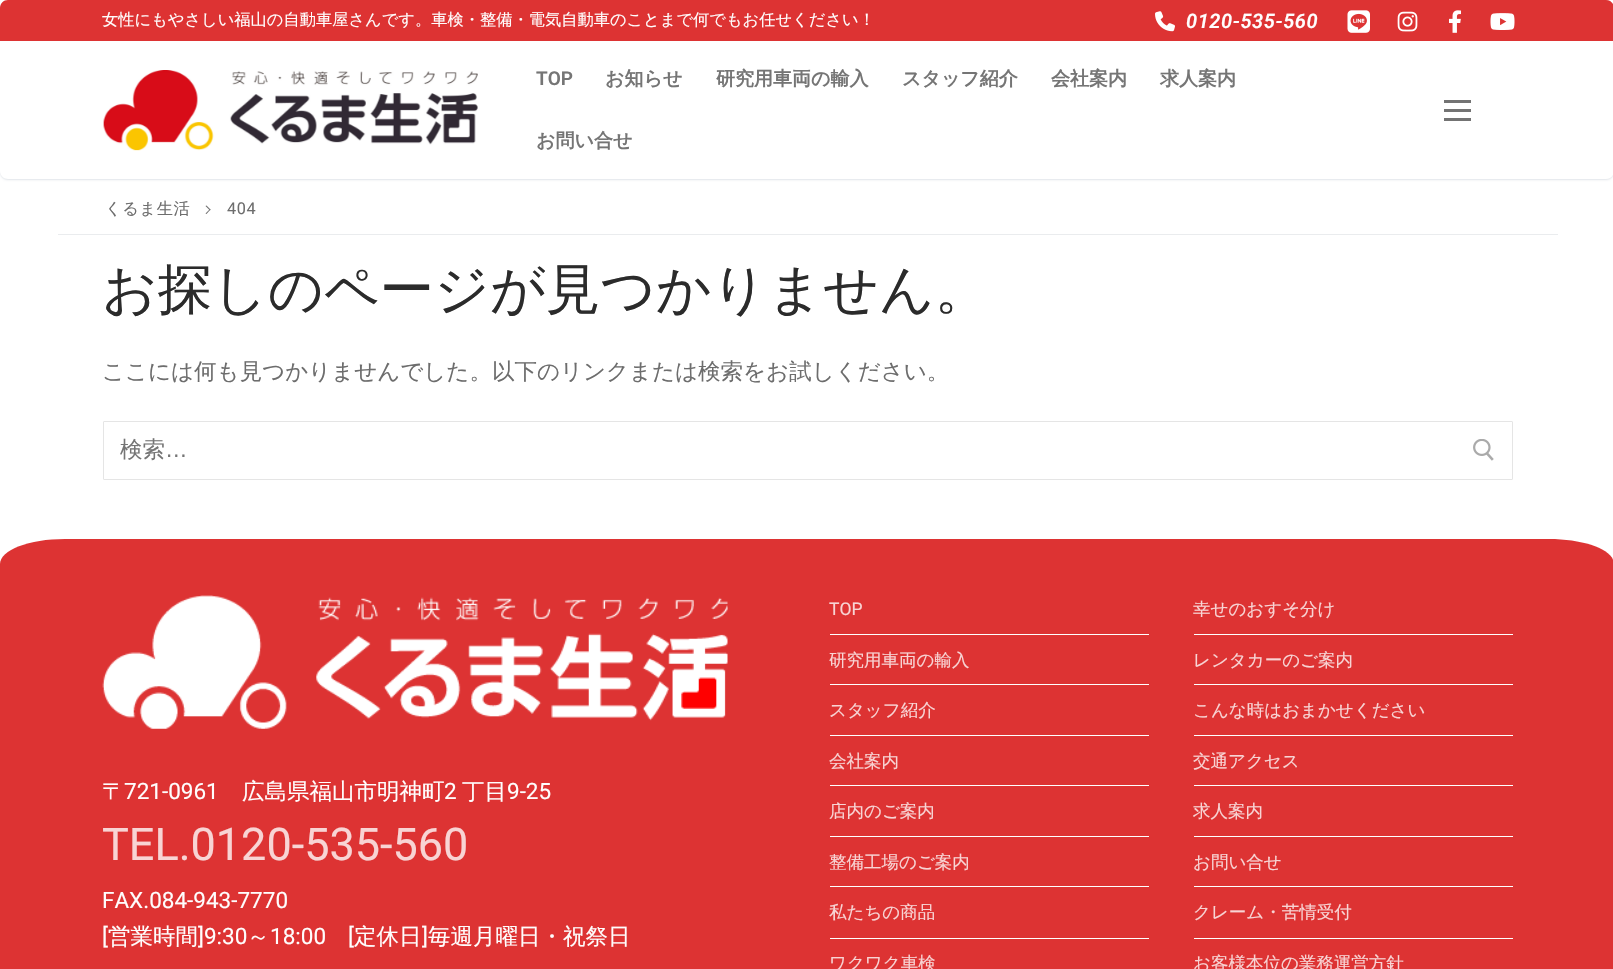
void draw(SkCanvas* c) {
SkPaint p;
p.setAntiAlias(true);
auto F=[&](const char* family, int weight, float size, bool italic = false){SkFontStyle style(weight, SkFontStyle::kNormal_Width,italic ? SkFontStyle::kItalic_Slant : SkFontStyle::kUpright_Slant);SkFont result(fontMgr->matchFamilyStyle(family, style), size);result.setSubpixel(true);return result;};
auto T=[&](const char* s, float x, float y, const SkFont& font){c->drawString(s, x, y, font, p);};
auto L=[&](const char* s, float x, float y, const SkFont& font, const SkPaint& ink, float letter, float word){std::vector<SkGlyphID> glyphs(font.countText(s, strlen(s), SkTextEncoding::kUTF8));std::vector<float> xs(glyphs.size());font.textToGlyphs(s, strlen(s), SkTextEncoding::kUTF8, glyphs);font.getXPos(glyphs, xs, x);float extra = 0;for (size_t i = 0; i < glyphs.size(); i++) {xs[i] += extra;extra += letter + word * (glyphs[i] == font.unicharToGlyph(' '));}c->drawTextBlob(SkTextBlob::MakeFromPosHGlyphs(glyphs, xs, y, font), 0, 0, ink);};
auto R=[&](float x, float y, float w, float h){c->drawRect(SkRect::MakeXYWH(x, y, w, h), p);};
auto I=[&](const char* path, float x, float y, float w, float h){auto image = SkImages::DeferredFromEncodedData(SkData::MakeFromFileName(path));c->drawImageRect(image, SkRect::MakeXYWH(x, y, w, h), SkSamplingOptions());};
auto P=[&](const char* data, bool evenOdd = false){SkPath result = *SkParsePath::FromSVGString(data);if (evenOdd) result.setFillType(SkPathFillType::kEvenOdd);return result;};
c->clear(0xffffffff);
p.setColor(0xffdd3333);
c->drawPath(P("M8 0h1598c4.5 0 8 3.5 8 8v33h-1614v-33c0-4.5 3.5-8 8-8z"),p);
auto f1 = F("WenQuanYi Zen Hei",500,16.25);
p.setColor(0xfffffdfd);
T("女性にもやさしい福山の自動車屋さんです。車検・整備・電気自動車のことまで何でもお任せください！",102,25,f1);
I("1.png",1155,11,20,21);
auto f2 = F("Roboto",600,20,true);
L("0120-535-560",1186,28,f2,p,.6,0);
I("2.png",1347,10,23,23);
I("3.png",1397,11,21,21);
I("4.png",1449,10,12,23);
I("5.png",1490,13,25,17);
p.setColor(0xffe1e5ea);
p.setMaskFilter(SkMaskFilter::MakeBlur(kNormal_SkBlurStyle, 1));
c->drawRoundRect(SkRect::MakeXYWH(0,43,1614,137),8,8,p);
p.setMaskFilter(nullptr);
p.setColor(0xffffffff);
c->drawPath(P("M0 41h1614v130c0 4.5-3.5 8-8 8h-1598c-4.5 0-8-3.5-8-8z"),p);
I("6.png",103,70,375,81);
auto f3 = F("Roboto",600,19);
p.setColor(0xff757575);
T("TOP",536,85,f3);
auto f4 = F("WenQuanYi Zen Hei",700,19);
T("お知らせ",605,85,f4);
T("研究用車両の輸入",716,85,f4);
T("スタッフ紹介",902,85,f4);
T("会社案内",1051,85,f4);
T("求人案内",1160,85,f4);
T("お問い合せ",536,147,f4);
p.setColor(0xff737373);
R(1444,109,27,3);
R(1444,100,27,3);
R(1444,118,27,3);
p.setColor(0xffeaecee);
R(58,234,1500,1);
p.setColor(0xff6d6d6d);
L("くるま生活",105,214,f1,p,.6,0);
c->drawPath(P("M210.5 209.5l-4 4.5l-1-.5l4.5-4.5z"),p);
c->drawPath(P("M210.5 209.5l-.5 1l-4.5-4.5l1-.5z"),p);
auto f5 = F("Roboto",400,16.25);
L("404",227,214,f5,p,.6,0);
auto f6 = F("WenQuanYi Zen Hei",500,54.5);
p.setColor(0xff2b2b2b);
T("お探しのページが見つかりません。",102,308,f6);
auto f7 = F("WenQuanYi Zen Hei",500,22.5);
p.setColor(0xff6d6d6d);
T("ここには何も見つかりませんでした。以下のリンクまたは検索をお試しください。",102,379,f7);
p.setStroke(true);
p.setStrokeWidth(1);
p.setColor(0xffe5e5e5);
c->drawRoundRect(SkRect::MakeXYWH(103.5,421.5,1409,58),.5,.5,p);
p.setStroke(false);
p.setColor(0xff757575);
T("検索",120,457,f7);
auto f8 = F("Liberation Sans",400,22.5);
T("…",165,457,f8);
I("7.png",1473,439,21,22);
p.setColor(0xffdd3333);
c->drawPath(P("M65 539h1484c36 0 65 11 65 25v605h-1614v-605c0-14 29-25 65-25z"),p);
I("8.png",102,595,626,134);
p.setColor(0xfffffdfd);
T("〒",102,799,f7);
auto f9 = F("Roboto",400,22.5);
T("721-0961",124,799,f9);
T("広島県福山市明神町",242,799,f7);
T("2",444,799,f9);
T("丁目",462,799,f7);
T("9-25",507,799,f9);
auto f10 = F("Roboto",400,45);
p.setColor(0xfff8d4d4);
T("TEL.0120-535-560",102,860,f10);
p.setColor(0xfffffdfd);
T("FAX.084-943-7770",102,908,f9);
T("[",102,944,f9);
T("営業時間",108,944,f7);
T("]9:30",198,944,f9);
T("～",247,944,f7);
T("18:00",270,944,f9);
T("[",348,944,f9);
T("定休日",354,944,f7);
T("]",422,944,f9);
T("毎週月曜日・祝祭日",428,944,f7);
p.setColor(0xffffffff);
R(830,634,319,1);
auto f11 = F("Roboto",400,17.5);
p.setColor(0xfff8d4d4);
T("TOP",829,615,f11);
p.setColor(0xffffffff);
R(830,684,319,1);
auto f12 = F("WenQuanYi Zen Hei",500,17.5);
p.setColor(0xfff8d4d4);
T("研究用車両の輸入",829,666,f12);
p.setColor(0xffffffff);
R(830,735,319,1);
p.setColor(0xfff8d4d4);
T("スタッフ紹介",829,716,f12);
p.setColor(0xffffffff);
R(830,785,319,1);
p.setColor(0xfff8d4d4);
T("会社案内",829,767,f12);
p.setColor(0xffffffff);
R(830,836,319,1);
p.setColor(0xfff8d4d4);
T("店内のご案内",829,817,f12);
p.setColor(0xffffffff);
R(830,886,319,1);
p.setColor(0xfff8d4d4);
T("整備工場のご案内",829,868,f12);
p.setColor(0xffffffff);
R(830,938,319,1);
p.setColor(0xfff8d4d4);
T("私たちの商品",829,918,f12);
T("ワクワク車検",829,969,f12);
p.setColor(0xffffffff);
R(1194,634,319,1);
p.setColor(0xfff8d4d4);
T("幸せのおすそ分け",1193,615,f12);
p.setColor(0xffffffff);
R(1194,684,319,1);
p.setColor(0xfff8d4d4);
T("レンタカーのご案内",1193,666,f12);
p.setColor(0xffffffff);
R(1194,735,319,1);
p.setColor(0xfff8d4d4);
T("こんな時はおまかせください",1193,716,f12);
p.setColor(0xffffffff);
R(1194,785,319,1);
p.setColor(0xfff8d4d4);
T("交通アクセス",1193,767,f12);
p.setColor(0xffffffff);
R(1194,836,319,1);
p.setColor(0xfff8d4d4);
T("求人案内",1193,817,f12);
p.setColor(0xffffffff);
R(1194,886,319,1);
p.setColor(0xfff8d4d4);
T("お問い合せ",1193,868,f12);
p.setColor(0xffffffff);
R(1194,938,319,1);
p.setColor(0xfff8d4d4);
T("クレーム・苦情受付",1193,918,f12);
T("お客様本位の業務運営方針",1193,969,f12);
}
